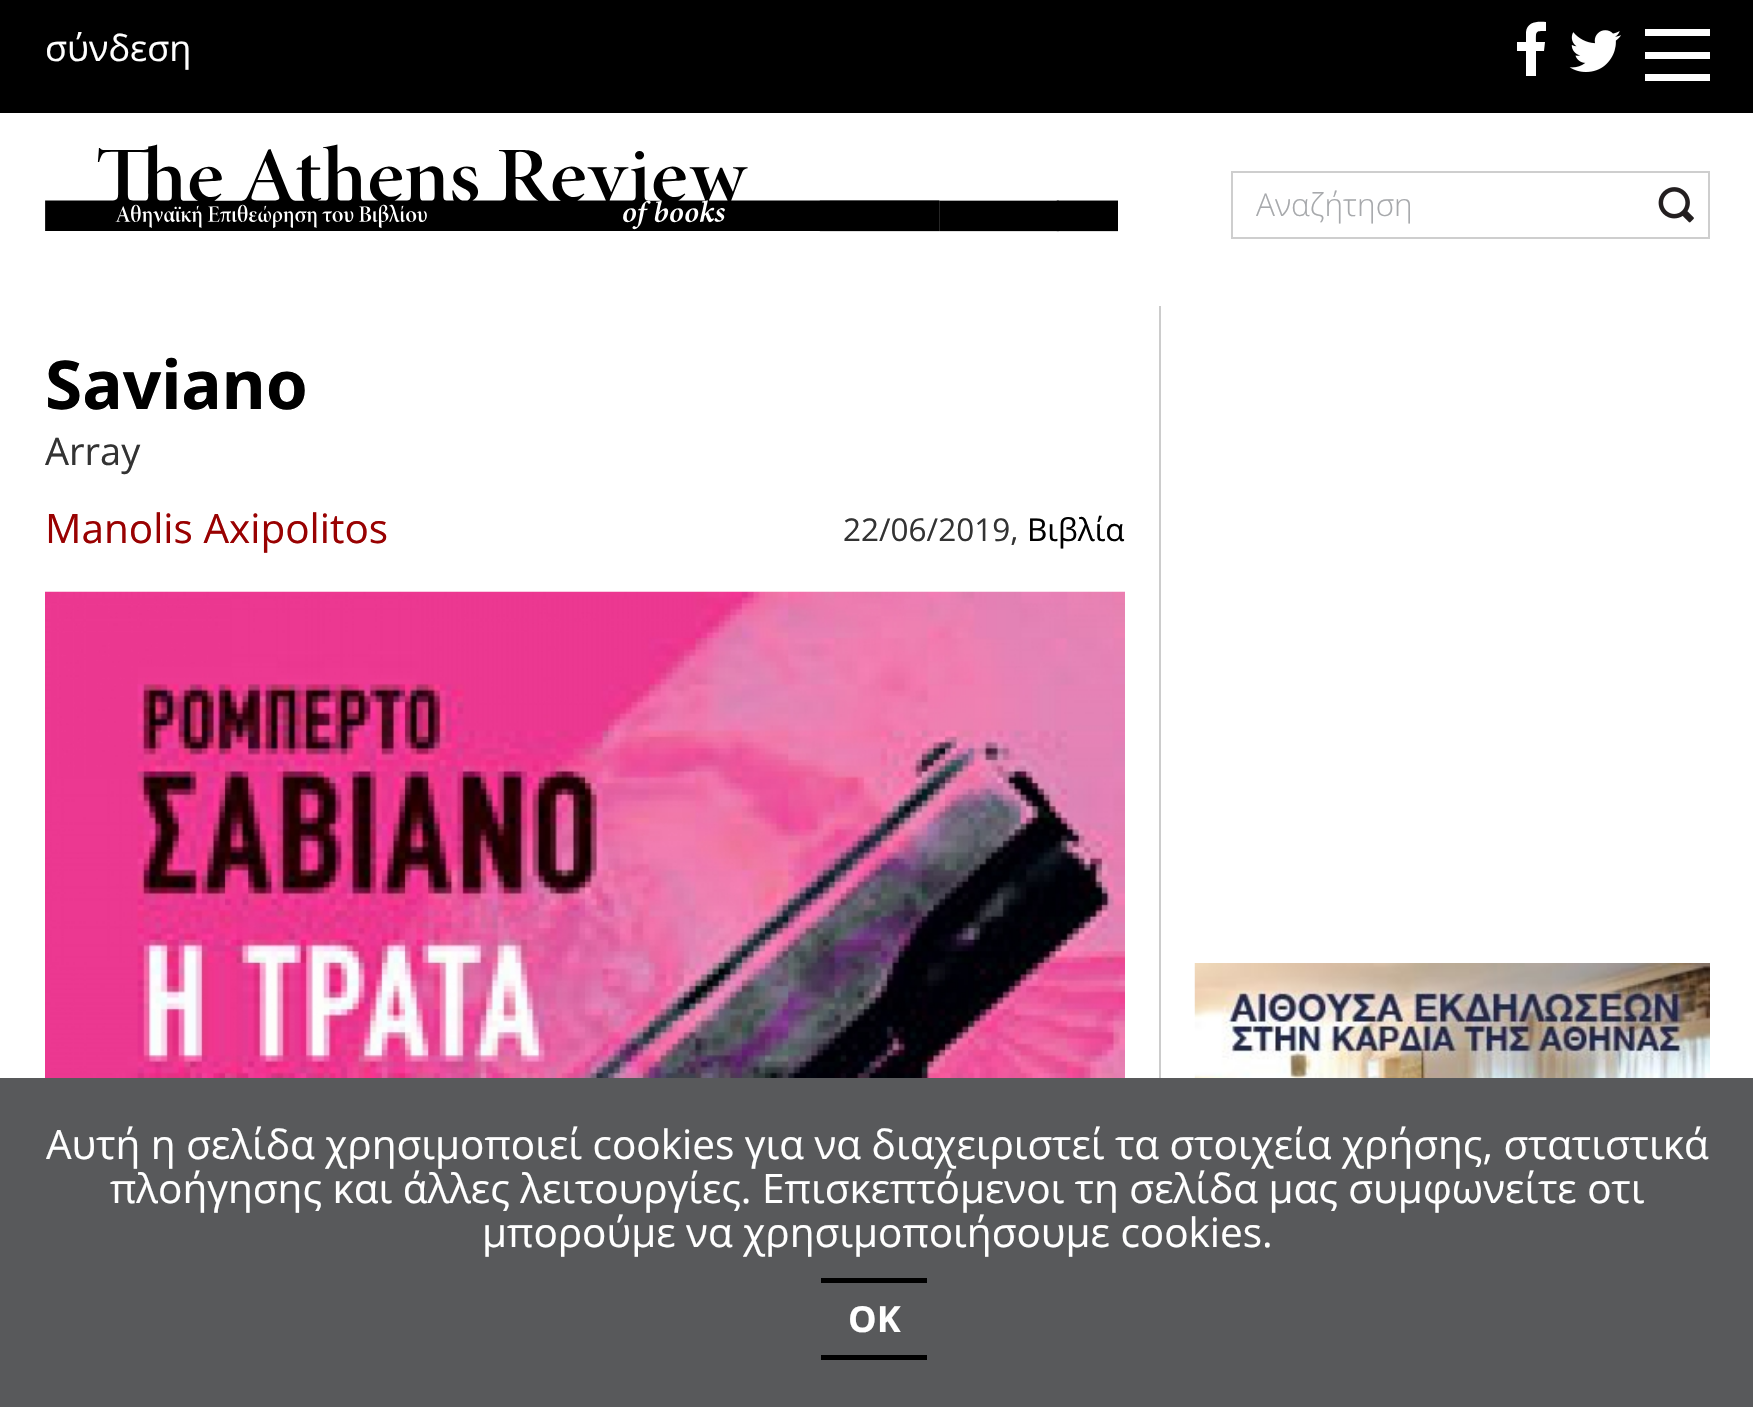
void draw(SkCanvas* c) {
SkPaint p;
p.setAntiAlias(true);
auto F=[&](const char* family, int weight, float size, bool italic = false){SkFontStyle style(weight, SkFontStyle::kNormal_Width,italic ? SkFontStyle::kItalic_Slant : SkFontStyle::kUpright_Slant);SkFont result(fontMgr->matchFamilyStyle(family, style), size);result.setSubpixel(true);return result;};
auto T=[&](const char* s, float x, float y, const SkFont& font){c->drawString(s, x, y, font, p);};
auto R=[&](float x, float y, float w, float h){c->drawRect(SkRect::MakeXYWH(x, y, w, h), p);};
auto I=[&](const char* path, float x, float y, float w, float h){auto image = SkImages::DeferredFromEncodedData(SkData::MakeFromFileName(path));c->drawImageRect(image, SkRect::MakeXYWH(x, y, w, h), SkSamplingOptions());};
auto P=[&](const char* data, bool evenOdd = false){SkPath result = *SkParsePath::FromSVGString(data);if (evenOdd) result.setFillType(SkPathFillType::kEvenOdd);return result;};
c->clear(0xffffffff);
p.setColor(0xff000000);
R(0,0,1753,113);
auto f1 = F("Open Sans",400,36);
p.setColor(0xffffffff);
T("σύνδεση",45,61,f1);
c->drawPath(P("M1546 22v9c-11 0-10 0-10 11h9l-1 9h-8v25h-10v-25h-9v-9h9v-10c1-10 11-11 20-10z"),p);
I("1.png",1569,30,52,42);
R(1645,52,65,7);
R(1645,29,65,7);
R(1645,74,65,7);
I("2.png",45,144,1073,88);
p.setStroke(true);
p.setStrokeWidth(2);
p.setColor(0xffcecece);
c->drawRect(SkRect::MakeXYWH(1232,172,477,66),p);
auto f2 = F("Open Sans",300,31.5);
p.setStroke(false);
p.setColor(0xffa7a9ac);
T("Αναζήτηση",1256,216,f2);
I("3.png",1658,187,36,36);
p.setColor(0xffcccccc);
R(1159,306,2,772);
auto f3 = F("Noto Sans",700,67.5);
p.setColor(0xff000000);
T("Saviano",45,409,f3);
auto f4 = F("Open Sans",400,38);
p.setColor(0xff333333);
T("Array",45,465,f4);
auto f5 = F("Open Sans",400,40.5);
p.setColor(0xff990101);
T("Manolis Axipolitos",45,543,f5);
auto f6 = F("Open Sans",400,31.5);
p.setColor(0xff333333);
T("22/06/2019,",843,541,f6);
p.setColor(0xff000000);
T("Βιβλία",1027,541,f6);
I("4.png",45,591,1080,487);
I("5.png",1194,963,516,115);
p.setColor(0xff58595b);
R(0,1078,1753,329);
p.setColor(0xffffffff);
T("Αυτή η σελίδα χρησιμοποιεί cookies για να διαχειριστεί τα στοιχεία χρήσης, στατιστικά",46,1159,f5);
T("πλοήγησης και άλλες λειτουργίες. Επισκεπτόμενοι τη σελίδα μας συμφωνείτε οτι",110,1203,f5);
T("μπορούμε να χρησιμοποιήσουμε cookies.",482,1247,f5);
p.setColor(0xff000000);
R(821,1278,106,5);
R(821,1355,106,5);
auto f7 = F("Open Sans",700,36);
p.setColor(0xffffffff);
T("OK",848,1332,f7);
}
